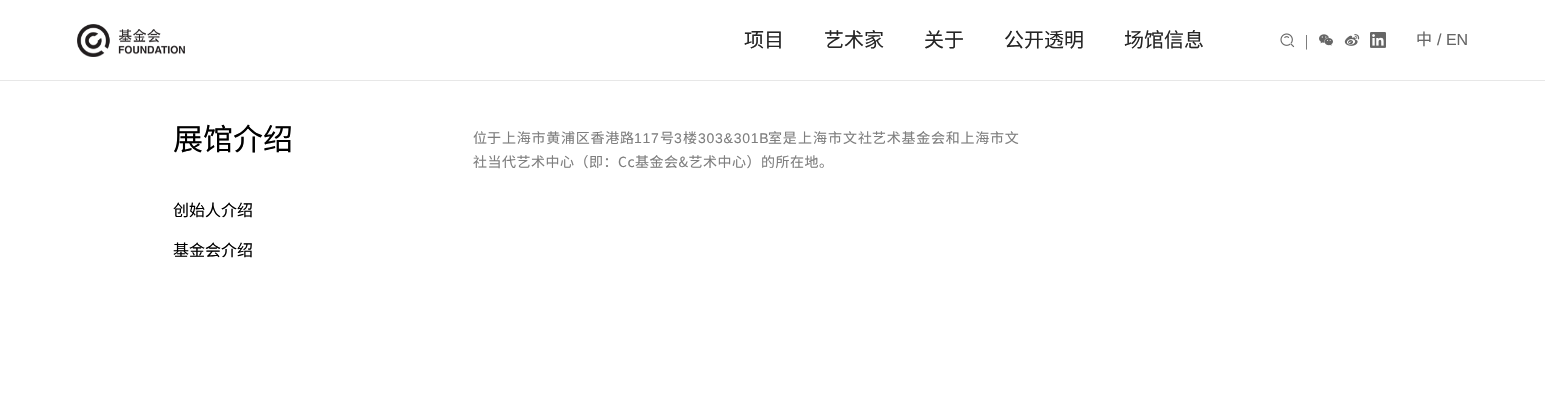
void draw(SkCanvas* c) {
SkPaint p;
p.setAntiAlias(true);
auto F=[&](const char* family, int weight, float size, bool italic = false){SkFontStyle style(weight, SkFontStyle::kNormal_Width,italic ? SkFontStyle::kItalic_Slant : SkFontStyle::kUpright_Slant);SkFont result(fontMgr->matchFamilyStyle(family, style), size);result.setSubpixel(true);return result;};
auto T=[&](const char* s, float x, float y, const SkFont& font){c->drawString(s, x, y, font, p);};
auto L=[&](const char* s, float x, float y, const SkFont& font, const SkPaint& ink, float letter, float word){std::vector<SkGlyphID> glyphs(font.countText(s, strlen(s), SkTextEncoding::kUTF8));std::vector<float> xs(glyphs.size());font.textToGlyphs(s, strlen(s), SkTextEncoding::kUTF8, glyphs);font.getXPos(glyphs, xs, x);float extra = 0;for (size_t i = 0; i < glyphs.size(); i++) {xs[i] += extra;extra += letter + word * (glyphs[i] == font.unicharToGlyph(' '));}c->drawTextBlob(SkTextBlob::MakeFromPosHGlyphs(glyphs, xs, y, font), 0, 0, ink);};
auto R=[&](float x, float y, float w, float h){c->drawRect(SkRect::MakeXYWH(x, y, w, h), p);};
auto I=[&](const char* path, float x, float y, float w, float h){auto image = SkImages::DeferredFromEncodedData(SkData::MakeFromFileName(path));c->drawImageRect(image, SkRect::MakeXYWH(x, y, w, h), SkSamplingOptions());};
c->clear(0xffffffff);
p.setColor(0xffe7e7e7);
R(0,80,1545,1);
I("1.png",77,24,108,33);
auto f1 = F("Noto Sans SC",400,20);
p.setColor(0xff262626);
T("项目",744,47,f1);
T("艺术家",824,47,f1);
T("关于",924,47,f1);
T("公开透明",1004,47,f1);
T("场馆信息",1124,47,f1);
I("2.png",1280,33,15,15);
auto f2 = F("Liberation Serif",400,16);
p.setColor(0xff666666);
T("|",1305,46,f2);
I("3.png",1319,34,14,12);
I("4.png",1344,34,16,12);
I("5.png",1370,32,16,16);
auto f3 = F("Noto Sans SC",400,16);
T("中",1416,45,f3);
auto f4 = F("Liberation Sans",400,16);
T("/ EN",1437,45,f4);
auto f5 = F("Noto Sans SC",400,30);
p.setColor(0xff000000);
T("展馆介绍",173,150,f5);
T("创始人介绍",173,216,f3);
T("基金会介绍",173,256,f3);
auto f6 = F("Noto Sans SC",400,14);
p.setColor(0xff7e7e7e);
T("位于",473,143,f6);
auto f7 = F("Noto Sans CJK SC",400,14);
L("上海市黄浦区香港路",502,143,f7,p,.75,0);
auto f8 = F("Liberation Sans",400,14);
L("117",634,143,f8,p,.75,0);
L("号",660,143,f7,p,.75,0);
L("3",674,143,f8,p,.75,0);
L("楼",683,143,f7,p,.75,0);
L("303&301B",698,143,f8,p,.75,0);
L("室是",768,143,f7,p,.75,0);
L("上海市文社",798,143,f6,p,1,0);
L("艺术基金会和上海市文",872,143,f6,p,.75,0);
L("社当代艺术中心（即：Cc基金会&艺术中心）的所在地。",473,167,f6,p,.5,0);
}
